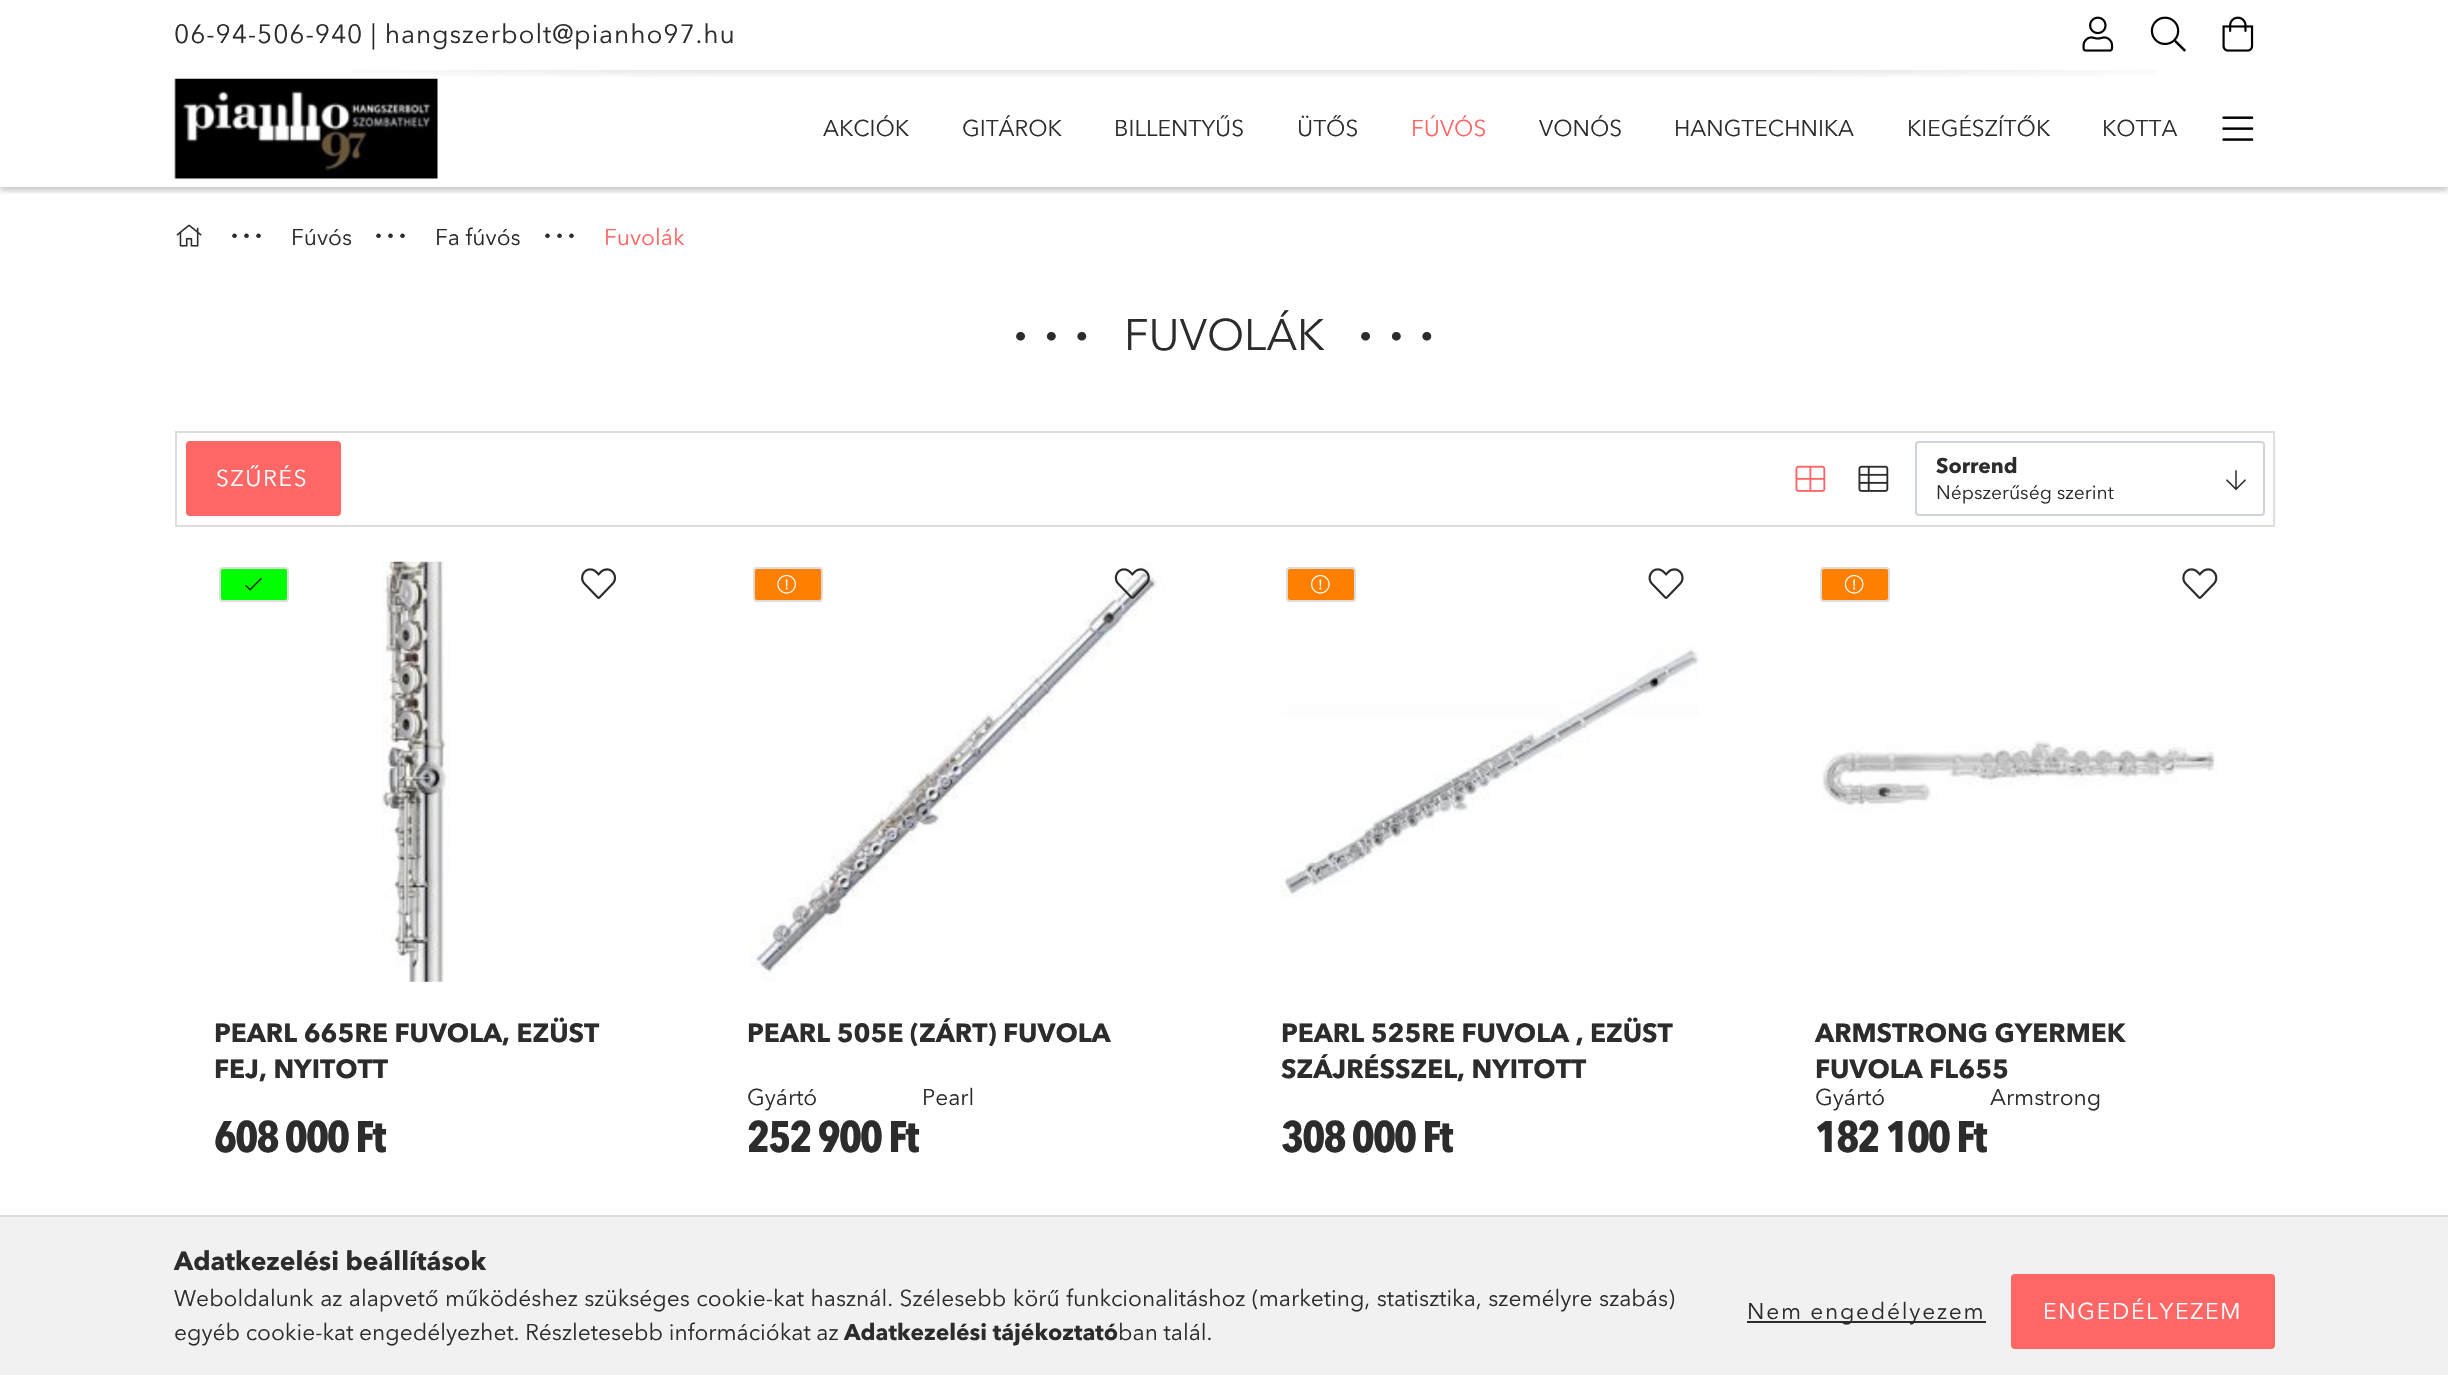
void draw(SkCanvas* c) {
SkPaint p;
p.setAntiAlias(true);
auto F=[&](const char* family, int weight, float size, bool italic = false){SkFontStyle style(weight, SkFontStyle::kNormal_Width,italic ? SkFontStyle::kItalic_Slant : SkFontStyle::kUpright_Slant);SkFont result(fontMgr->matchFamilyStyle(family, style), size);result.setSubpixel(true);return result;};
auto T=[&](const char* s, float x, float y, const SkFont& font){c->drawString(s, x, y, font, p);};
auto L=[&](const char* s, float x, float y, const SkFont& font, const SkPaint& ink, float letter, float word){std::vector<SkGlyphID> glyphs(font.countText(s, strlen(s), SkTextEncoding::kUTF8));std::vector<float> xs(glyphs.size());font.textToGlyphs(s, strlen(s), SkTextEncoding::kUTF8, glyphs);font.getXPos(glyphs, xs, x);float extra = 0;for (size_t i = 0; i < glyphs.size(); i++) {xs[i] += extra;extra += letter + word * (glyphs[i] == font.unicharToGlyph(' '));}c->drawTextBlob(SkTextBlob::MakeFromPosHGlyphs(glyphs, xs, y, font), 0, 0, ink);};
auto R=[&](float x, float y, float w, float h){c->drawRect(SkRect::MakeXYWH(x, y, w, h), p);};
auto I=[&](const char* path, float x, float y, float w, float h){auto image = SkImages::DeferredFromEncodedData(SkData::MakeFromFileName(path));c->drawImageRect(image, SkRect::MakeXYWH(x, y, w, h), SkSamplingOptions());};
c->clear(0xffffffff);
c->save();
c->clipRect(SkRect::MakeXYWH(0,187,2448,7));
p.setColor(0x33000000);
p.setMaskFilter(SkMaskFilter::MakeBlur(kNormal_SkBlurStyle, 2.5));
c->drawRect(SkRect::MakeXYWH(0,4,2448,187),p);
p.setMaskFilter(nullptr);
c->restore();
auto f1 = F("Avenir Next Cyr",400,26.25);
p.setColor(0xff2c2c2c);
L("06-94-506-940 | hangszerbolt@pianho97.hu",174,43,f1,p,.9,0);
I("1.png",2082,16,32,36);
I("2.png",2150,16,36,36);
I("3.png",2222,16,32,36);
I("4.png",353,70,1804,7);
I("5.png",174,78,264,101);
auto f2 = F("Avenir Next Cyr",400,22.75);
T("AKCIÓK",823,136,f2);
T("GITÁROK",962,136,f2);
T("BILLENTYŰS",1114,136,f2);
T("ÜTŐS",1297,136,f2);
p.setColor(0xffff6666);
T("FÚVÓS",1411,136,f2);
p.setColor(0xff2c2c2c);
T("VONÓS",1539,136,f2);
T("HANGTECHNIKA",1674,136,f2);
T("KIEGÉSZÍTŐK",1907,136,f2);
T("KOTTA",2102,136,f2);
I("6.png",2222,116,32,25);
I("7.png",176,224,26,23);
auto f3 = F("Liberation Serif",700,28);
L("∙∙∙",231,245,f3,p,5,0);
T("Fúvós",291,245,f2);
L("∙∙∙",375,245,f3,p,5,0);
T("Fa fúvós",435,245,f2);
L("∙∙∙",544,245,f3,p,5,0);
p.setColor(0xffff6666);
T("Fuvolák",604,245,f2);
auto f4 = F("Avenir Next Cyr",700,43.75);
p.setColor(0xff2c2c2c);
L("∙∙∙",1014,349,f4,p,17.5,0);
auto f5 = F("Avenir Next Cyr",400,43.75);
T("FUVOLÁK",1124,350,f5);
L("∙∙∙",1359,349,f4,p,17.5,0);
p.setStroke(true);
p.setStrokeWidth(2);
p.setColor(0xffdddddd);
c->drawRect(SkRect::MakeXYWH(176,432,2098,94),p);
p.setStroke(false);
p.setColor(0xffff6666);
c->drawRoundRect(SkRect::MakeXYWH(187,442,153,73),3,3,p);
p.setStroke(true);
c->drawRoundRect(SkRect::MakeXYWH(187,442,153,73),3,3,p);
p.setStroke(false);
p.setColor(0xffffffff);
L("SZŰRÉS",216,486,f2,p,1.75,0);
I("8.png",1795,465,31,27);
I("9.png",1858,465,31,27);
p.setStroke(true);
p.setColor(0xffced4da);
c->drawRoundRect(SkRect::MakeXYWH(1916,442,348,73),3,3,p);
auto f6 = F("Avenir Next Cyr",700,21);
p.setStroke(false);
p.setColor(0xff2c2c2c);
T("Sorrend",1936,473,f6);
I("10.png",2226,470,20,21);
auto f7 = F("Avenir Next Cyr",400,19.25);
T("Népszerűség szerint",1936,499,f7);
I("11.png",381,561,70,421);
p.setColor(0xff00ff01);
c->drawRoundRect(SkRect::MakeXYWH(220,568,68,33),3,3,p);
p.setStroke(true);
p.setColor(0xffdddddd);
c->drawRoundRect(SkRect::MakeXYWH(220,568,68,33),3,3,p);
I("12.png",245,578,17,13);
I("13.png",581,568,36,31);
auto f8 = F("Avenir Next Cyr",700,26.25);
p.setStroke(false);
p.setColor(0xff2c2c2c);
T("PEARL 665RE FUVOLA, EZÜST",214,1042,f8);
T("FEJ, NYITOTT",214,1078,f8);
auto f9 = F("Avenir Next",700,43.75);
L("608 000 Ft",214,1152,f9,p,-1.75,0);
I("14.png",749,562,416,420);
p.setColor(0xffff7f00);
c->drawRoundRect(SkRect::MakeXYWH(754,568,68,33),3,3,p);
p.setStroke(true);
p.setColor(0xffdddddd);
c->drawRoundRect(SkRect::MakeXYWH(754,568,68,33),3,3,p);
I("15.png",777,575,19,19);
I("16.png",1114,568,36,31);
p.setStroke(false);
p.setColor(0xff2c2c2c);
T("PEARL 505E (ZÁRT) FUVOLA",747,1042,f8);
T("Gyártó",747,1105,f2);
T("Pearl",922,1105,f2);
L("252 900 Ft",747,1152,f9,p,-1.75,0);
p.setColor(0xffff7f00);
c->drawRoundRect(SkRect::MakeXYWH(1287,568,68,33),3,3,p);
p.setStroke(true);
p.setColor(0xffdddddd);
c->drawRoundRect(SkRect::MakeXYWH(1287,568,68,33),3,3,p);
I("17.png",1311,575,19,19);
I("18.png",1648,568,36,31);
I("19.png",1281,646,420,252);
p.setStroke(false);
p.setColor(0xff2c2c2c);
T("PEARL 525RE FUVOLA , EZÜST",1281,1042,f8);
T("SZÁJRÉSSZEL, NYITOTT",1281,1078,f8);
L("308 000 Ft",1281,1152,f9,p,-1.75,0);
p.setColor(0xffff7f00);
c->drawRoundRect(SkRect::MakeXYWH(1821,568,68,33),3,3,p);
p.setStroke(true);
p.setColor(0xffdddddd);
c->drawRoundRect(SkRect::MakeXYWH(1821,568,68,33),3,3,p);
I("20.png",1844,575,20,19);
I("21.png",2182,568,36,31);
I("22.png",1822,740,395,72);
p.setStroke(false);
p.setColor(0xff2c2c2c);
T("ARMSTRONG GYERMEK",1815,1042,f8);
T("FUVOLA FL655",1815,1078,f8);
T("Gyártó",1815,1105,f2);
T("Armstrong",1990,1105,f2);
L("182 100 Ft",1815,1152,f9,p,-1.75,0);
p.setColor(0xfff1f1f1);
R(0,1217,2448,158);
p.setColor(0xffdddddd);
R(0,1215,2448,2);
p.setColor(0xff2c2c2c);
T("Adatkezelési beállítások",174,1270,f8);
L("Weboldalunk az alapvető működéshez szükséges cookie-kat használ. Szélesebb körű funkcionalitáshoz (marketing, statisztika, személyre szabás)",174,1306,f2,p,0,.8);
T("egyéb cookie-kat engedélyezhet. Részletesebb információkat az",174,1340,f2);
auto f10 = F("Avenir Next Cyr",700,22.75);
T("Adatkezelési tájékoztató",844,1340,f10);
T("ban talál.",1118,1340,f2);
R(1747,1321,239,2);
L("Nem engedélyezem",1747,1319,f2,p,1.75,0);
p.setColor(0xffff6666);
c->drawRoundRect(SkRect::MakeXYWH(2012,1275,262,73),3,3,p);
p.setStroke(true);
c->drawRoundRect(SkRect::MakeXYWH(2012,1275,262,73),3,3,p);
p.setStroke(false);
p.setColor(0xffffffff);
L("ENGEDÉLYEZEM",2043,1319,f2,p,1.75,0);
}
